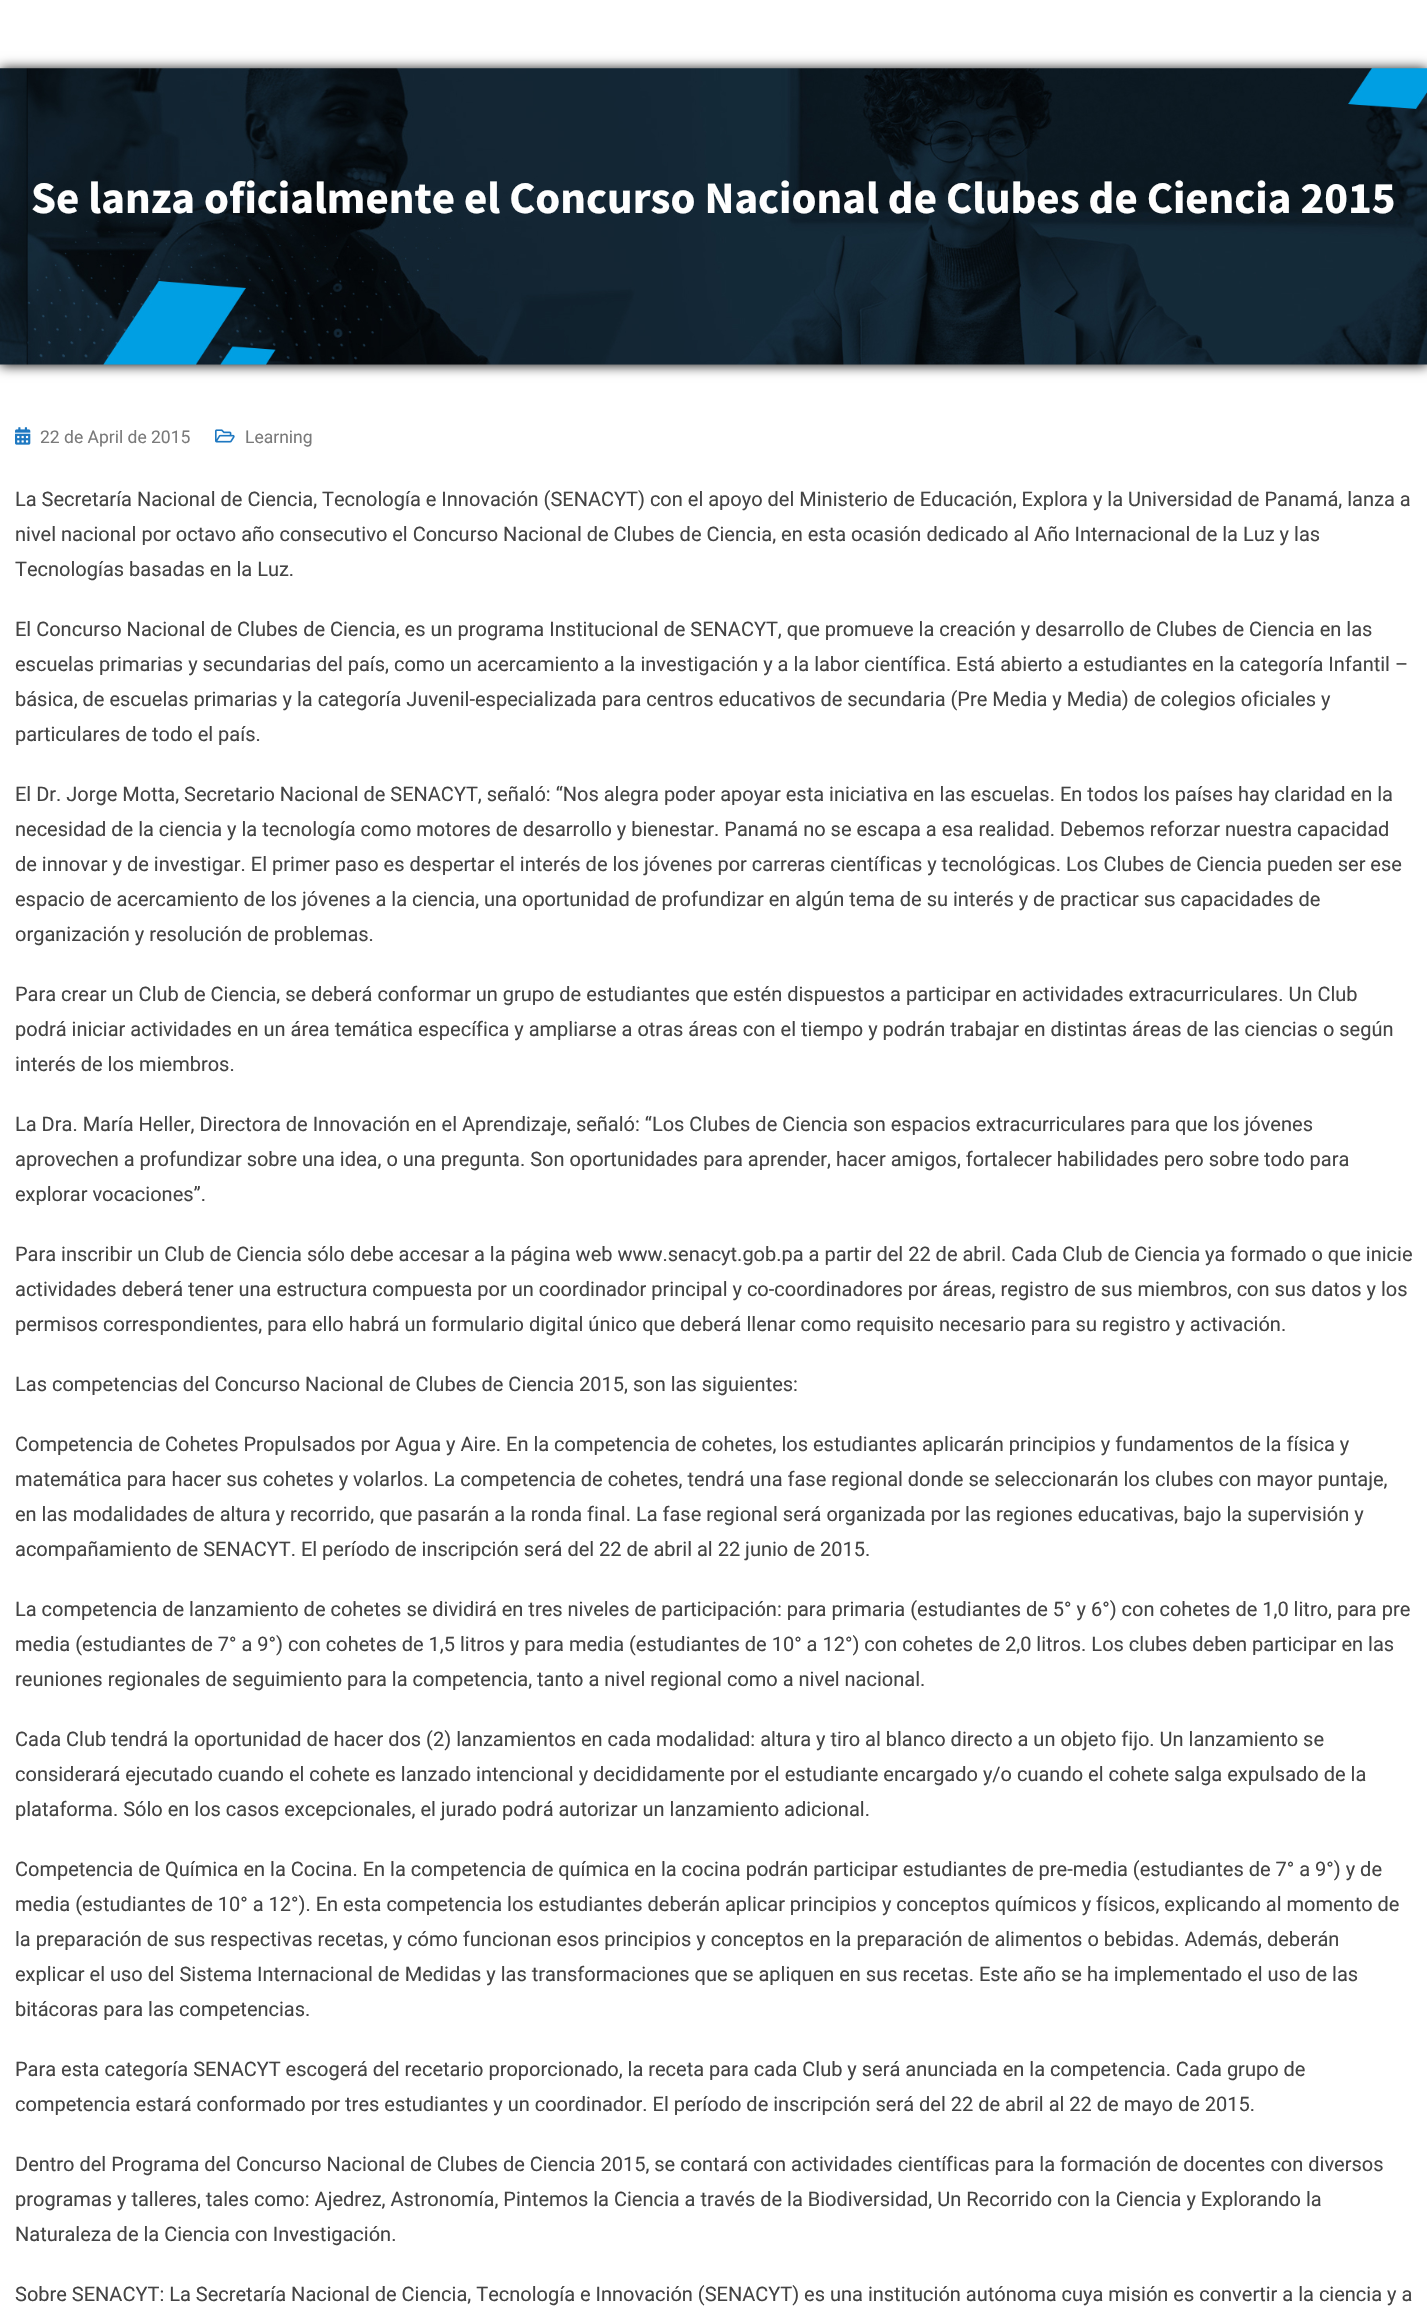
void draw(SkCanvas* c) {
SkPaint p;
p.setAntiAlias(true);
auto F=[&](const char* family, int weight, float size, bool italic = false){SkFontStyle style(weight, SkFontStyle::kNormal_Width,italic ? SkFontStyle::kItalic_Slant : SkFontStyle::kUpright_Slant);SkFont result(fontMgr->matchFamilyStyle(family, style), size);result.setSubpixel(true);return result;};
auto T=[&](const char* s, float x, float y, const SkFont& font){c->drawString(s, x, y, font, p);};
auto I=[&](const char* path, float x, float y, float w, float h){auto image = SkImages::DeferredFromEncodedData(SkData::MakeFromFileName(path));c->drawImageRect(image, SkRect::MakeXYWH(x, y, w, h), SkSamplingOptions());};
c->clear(0xffffffff);
p.setColor(0xfa000000);
p.setMaskFilter(SkMaskFilter::MakeBlur(kNormal_SkBlurStyle, 6));
c->drawRect(SkRect::MakeXYWH(0,69,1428,296),p);
p.setMaskFilter(nullptr);
I("1.png",0,68,1427,297);
auto f1 = F("Source Sans Pro",700,45);
p.setColor(0xfffefefe);
T("Se lanza oficialmente el Concurso Nacional de Clubes de Ciencia 2015",31,213,f1);
I("2.png",15,427,16,18);
auto f2 = F("Roboto",400,17.5);
p.setColor(0xff7a7a7a);
T("22 de April de 2015",40,443,f2);
I("3.png",215,429,20,14);
T("Learning",245,443,f2);
auto f3 = F("Roboto",400,20);
p.setColor(0xff444444);
T("La Secretaría Nacional de Ciencia, Tecnología e Innovación (SENACYT) con el apoyo del Ministerio de Educación, Explora y la Universidad de Panamá, lanza a",15,506,f3);
T("nivel nacional por octavo año consecutivo el Concurso Nacional de Clubes de Ciencia, en esta ocasión dedicado al Año Internacional de la Luz y las",15,541,f3);
T("Tecnologías basadas en la Luz.",15,576,f3);
T("El Concurso Nacional de Clubes de Ciencia, es un programa Institucional de SENACYT, que promueve la creación y desarrollo de Clubes de Ciencia en las",15,636,f3);
T("escuelas primarias y secundarias del país, como un acercamiento a la investigación y a la labor científica. Está abierto a estudiantes en la categoría Infantil –",15,671,f3);
T("básica, de escuelas primarias y la categoría Juvenil-especializada para centros educativos de secundaria (Pre Media y Media) de colegios oficiales y",15,706,f3);
T("particulares de todo el país.",15,741,f3);
T("El Dr. Jorge Motta, Secretario Nacional de SENACYT, señaló: “Nos alegra poder apoyar esta iniciativa en las escuelas. En todos los países hay claridad en la",15,801,f3);
T("necesidad de la ciencia y la tecnología como motores de desarrollo y bienestar. Panamá no se escapa a esa realidad. Debemos reforzar nuestra capacidad",15,836,f3);
T("de innovar y de investigar. El primer paso es despertar el interés de los jóvenes por carreras científicas y tecnológicas. Los Clubes de Ciencia pueden ser ese",15,871,f3);
T("espacio de acercamiento de los jóvenes a la ciencia, una oportunidad de profundizar en algún tema de su interés y de practicar sus capacidades de",15,906,f3);
T("organización y resolución de problemas.",15,941,f3);
T("Para crear un Club de Ciencia, se deberá conformar un grupo de estudiantes que estén dispuestos a participar en actividades extracurriculares. Un Club",15,1001,f3);
T("podrá iniciar actividades en un área temática específica y ampliarse a otras áreas con el tiempo y podrán trabajar en distintas áreas de las ciencias o según",15,1036,f3);
T("interés de los miembros.",15,1071,f3);
T("La Dra. María Heller, Directora de Innovación en el Aprendizaje, señaló: “Los Clubes de Ciencia son espacios extracurriculares para que los jóvenes",15,1131,f3);
T("aprovechen a profundizar sobre una idea, o una pregunta. Son oportunidades para aprender, hacer amigos, fortalecer habilidades pero sobre todo para",15,1166,f3);
T("explorar vocaciones”.",15,1201,f3);
T("Para inscribir un Club de Ciencia sólo debe accesar a la página web www.senacyt.gob.pa a partir del 22 de abril. Cada Club de Ciencia ya formado o que inicie",15,1261,f3);
T("actividades deberá tener una estructura compuesta por un coordinador principal y co-coordinadores por áreas, registro de sus miembros, con sus datos y los",15,1296,f3);
T("permisos correspondientes, para ello habrá un formulario digital único que deberá llenar como requisito necesario para su registro y activación.",15,1331,f3);
T("Las competencias del Concurso Nacional de Clubes de Ciencia 2015, son las siguientes:",15,1391,f3);
T("Competencia de Cohetes Propulsados por Agua y Aire. En la competencia de cohetes, los estudiantes aplicarán principios y fundamentos de la física y",15,1451,f3);
T("matemática para hacer sus cohetes y volarlos. La competencia de cohetes, tendrá una fase regional donde se seleccionarán los clubes con mayor puntaje,",15,1486,f3);
T("en las modalidades de altura y recorrido, que pasarán a la ronda final. La fase regional será organizada por las regiones educativas, bajo la supervisión y",15,1521,f3);
T("acompañamiento de SENACYT. El período de inscripción será del 22 de abril al 22 junio de 2015.",15,1556,f3);
T("La competencia de lanzamiento de cohetes se dividirá en tres niveles de participación: para primaria (estudiantes de 5° y 6°) con cohetes de 1,0 litro, para pre",15,1616,f3);
T("media (estudiantes de 7° a 9°) con cohetes de 1,5 litros y para media (estudiantes de 10° a 12°) con cohetes de 2,0 litros. Los clubes deben participar en las",15,1651,f3);
T("reuniones regionales de seguimiento para la competencia, tanto a nivel regional como a nivel nacional.",15,1686,f3);
T("Cada Club tendrá la oportunidad de hacer dos (2) lanzamientos en cada modalidad: altura y tiro al blanco directo a un objeto fijo. Un lanzamiento se",15,1746,f3);
T("considerará ejecutado cuando el cohete es lanzado intencional y decididamente por el estudiante encargado y/o cuando el cohete salga expulsado de la",15,1781,f3);
T("plataforma. Sólo en los casos excepcionales, el jurado podrá autorizar un lanzamiento adicional.",15,1816,f3);
T("Competencia de Química en la Cocina. En la competencia de química en la cocina podrán participar estudiantes de pre-media (estudiantes de 7° a 9°) y de",15,1876,f3);
T("media (estudiantes de 10° a 12°). En esta competencia los estudiantes deberán aplicar principios y conceptos químicos y físicos, explicando al momento de",15,1911,f3);
T("la preparación de sus respectivas recetas, y cómo funcionan esos principios y conceptos en la preparación de alimentos o bebidas. Además, deberán",15,1946,f3);
T("explicar el uso del Sistema Internacional de Medidas y las transformaciones que se apliquen en sus recetas. Este año se ha implementado el uso de las",15,1981,f3);
T("bitácoras para las competencias.",15,2016,f3);
T("Para esta categoría SENACYT escogerá del recetario proporcionado, la receta para cada Club y será anunciada en la competencia. Cada grupo de",15,2076,f3);
T("competencia estará conformado por tres estudiantes y un coordinador. El período de inscripción será del 22 de abril al 22 de mayo de 2015.",15,2111,f3);
T("Dentro del Programa del Concurso Nacional de Clubes de Ciencia 2015, se contará con actividades científicas para la formación de docentes con diversos",15,2171,f3);
T("programas y talleres, tales como: Ajedrez, Astronomía, Pintemos la Ciencia a través de la Biodiversidad, Un Recorrido con la Ciencia y Explorando la",15,2206,f3);
T("Naturaleza de la Ciencia con Investigación.",15,2241,f3);
T("Sobre SENACYT: La Secretaría Nacional de Ciencia, Tecnología e Innovación (SENACYT) es una institución autónoma cuya misión es convertir a la ciencia y a",15,2301,f3);
}
